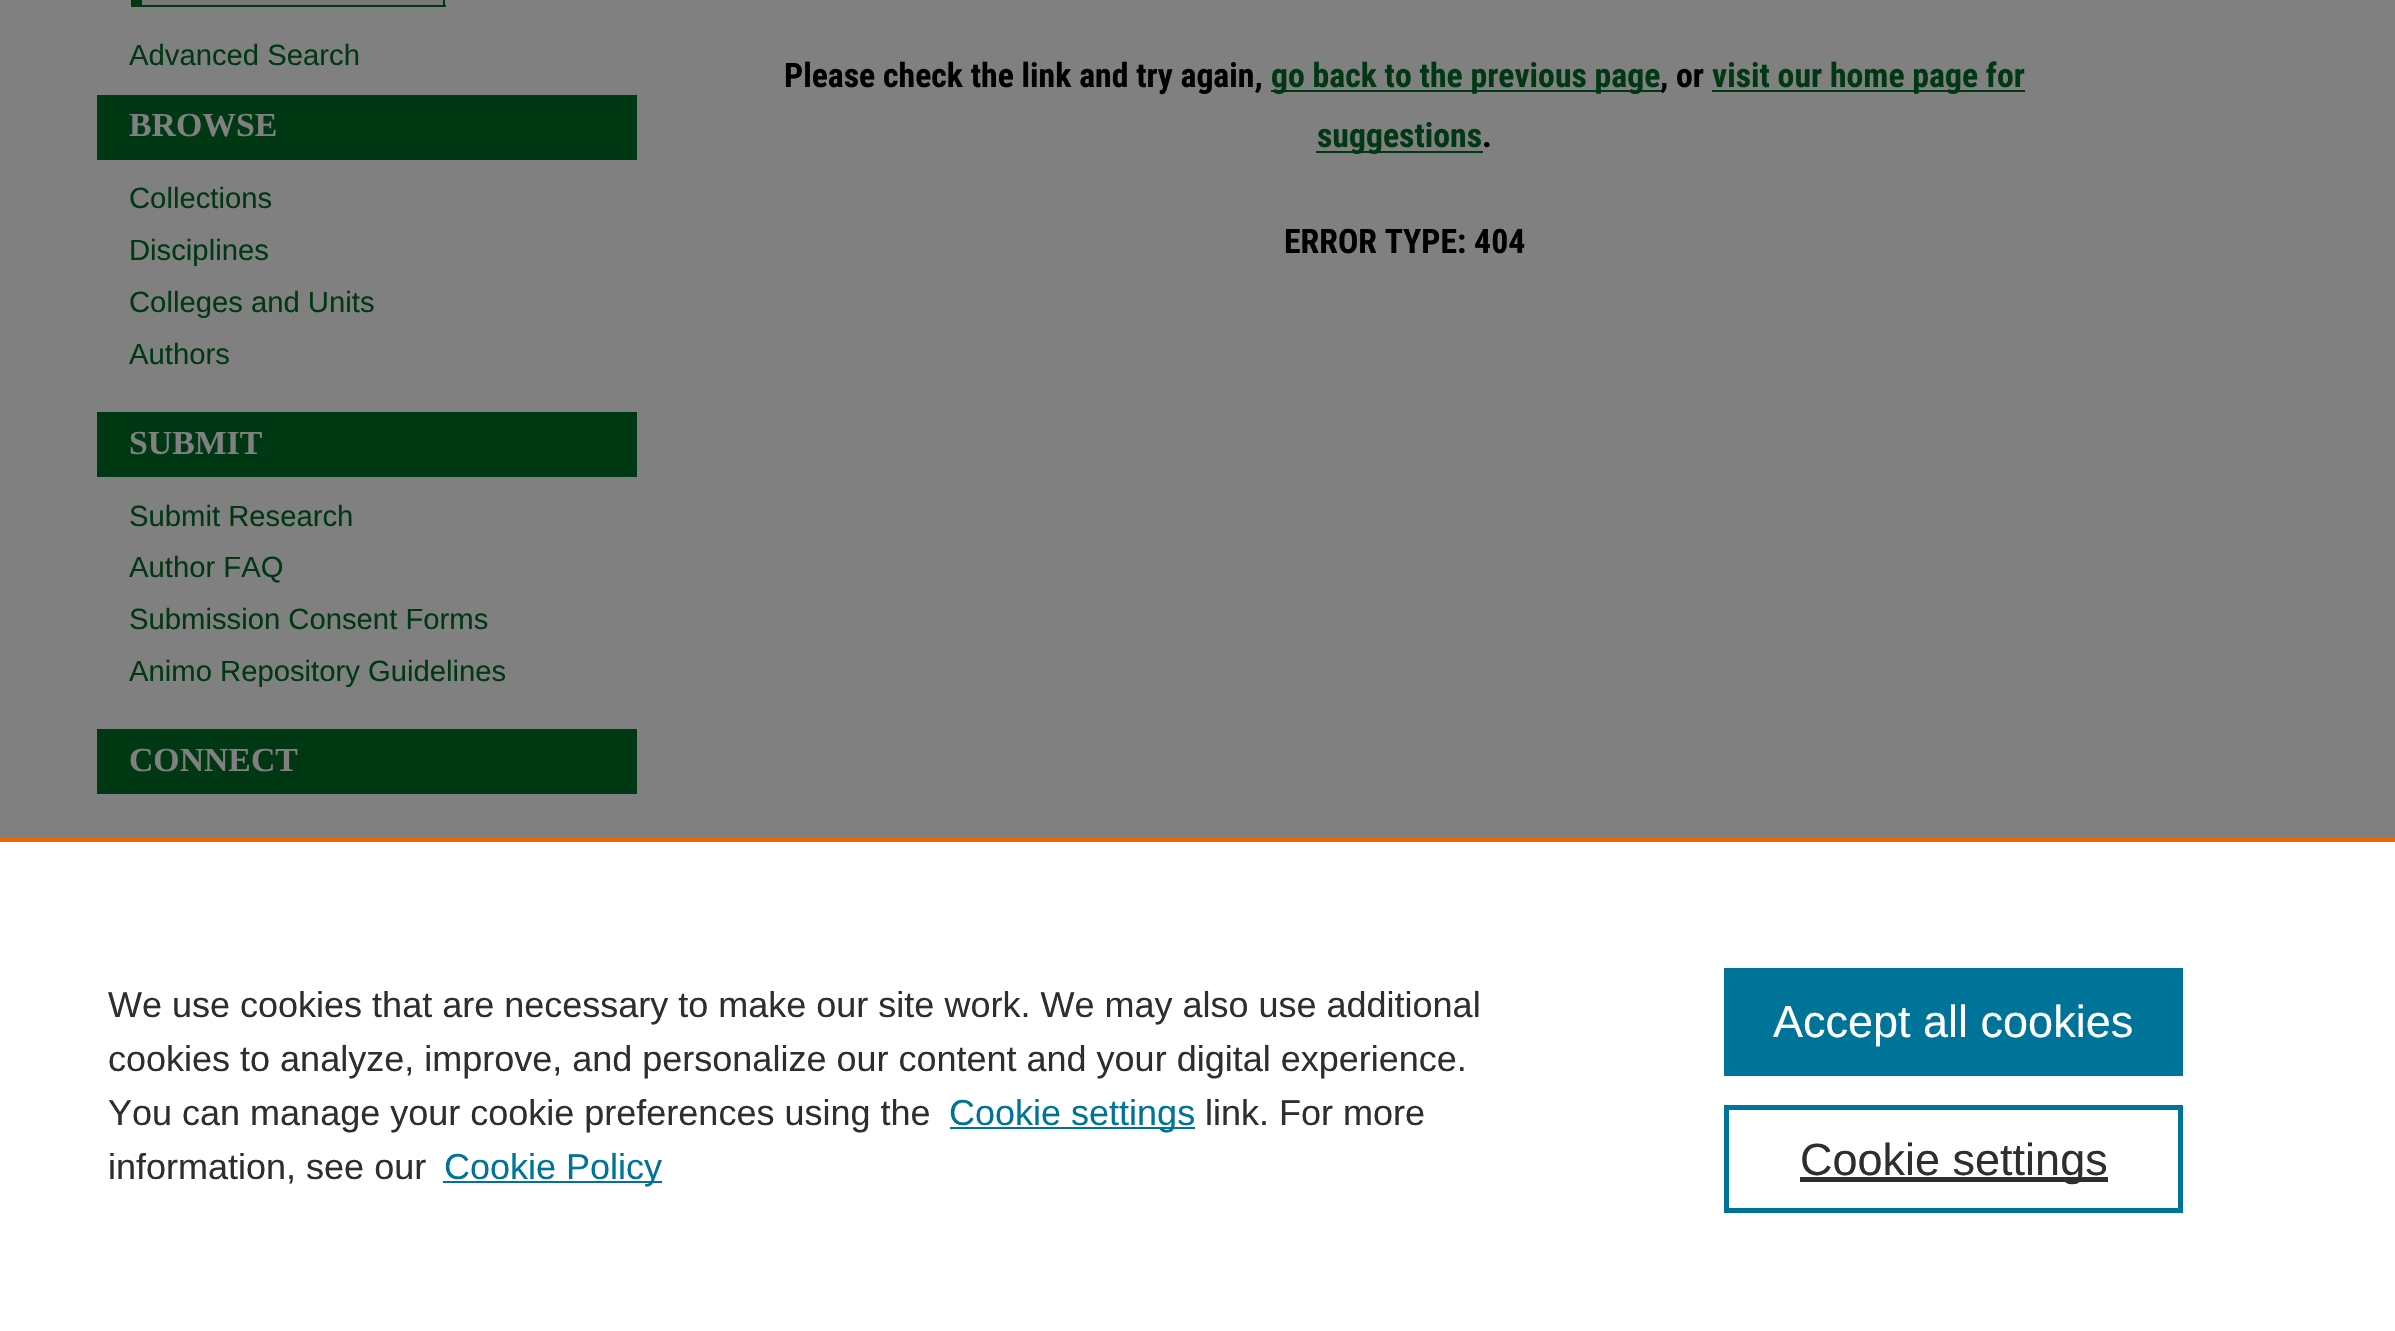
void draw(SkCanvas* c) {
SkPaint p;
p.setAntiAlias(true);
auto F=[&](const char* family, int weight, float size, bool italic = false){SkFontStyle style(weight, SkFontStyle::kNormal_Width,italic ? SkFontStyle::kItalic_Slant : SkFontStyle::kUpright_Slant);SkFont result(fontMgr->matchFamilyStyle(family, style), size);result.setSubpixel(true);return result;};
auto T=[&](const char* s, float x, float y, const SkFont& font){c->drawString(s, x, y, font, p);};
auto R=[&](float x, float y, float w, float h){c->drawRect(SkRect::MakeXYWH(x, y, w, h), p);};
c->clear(0xff808080);
p.setColor(0xff787878);
R(142,0,301,5);
p.setColor(0xff013814);
R(443,0,2,7);
R(142,5,304,2);
R(131,0,11,7);
auto f1 = F("Liberation Sans",400,29.25);
T("Advanced Search",129,65,f1);
R(97,95,540,65);
auto f2 = F("Liberation Serif",700,33.75);
p.setColor(0xff808080);
T("BROWSE",129,136,f2);
p.setColor(0xff013814);
T("Collections",129,208,f1);
T("Disciplines",129,260,f1);
T("Colleges and Units",129,312,f1);
T("Authors",129,364,f1);
R(97,412,540,65);
p.setColor(0xff808080);
T("SUBMIT",129,454,f2);
p.setColor(0xff013814);
T("Submit Research",129,526,f1);
T("Author FAQ",129,577,f1);
T("Submission Consent Forms",129,629,f1);
T("Animo Repository Guidelines",129,681,f1);
R(97,729,540,65);
p.setColor(0xff808080);
T("CONNECT",129,771,f2);
auto f3 = F("Roboto Condensed",700,33.75);
p.setColor(0xff000000);
T("Please check the link and try again,",784,87,f3);
p.setColor(0xff013814);
R(1271,90,390,2);
T("go back to the previous page",1271,87,f3);
p.setColor(0xff000000);
T(", or",1660,87,f3);
p.setColor(0xff013814);
R(1712,90,313,2);
T("visit our home page for",1712,87,f3);
R(1316,151,167,2);
T("suggestions",1317,147,f3);
p.setColor(0xff000000);
T(".",1482,147,f3);
T("ERROR TYPE: 404",1284,253,f3);
p.setColor(0xffffffff);
R(0,842,2395,489);
p.setColor(0xffeb6500);
R(0,837,2395,5);
auto f4 = F("Liberation Sans",400,36);
p.setColor(0xff2e2e2e);
T("We use cookies that are necessary to make our site work. We may also use additional",108,1017,f4);
T("cookies to analyze, improve, and personalize our content and your digital experience.",108,1071,f4);
T("You can manage your cookie preferences using the",108,1125,f4);
p.setColor(0xff007398);
R(950,1127,245,2);
T("Cookie settings",949,1125,f4);
p.setColor(0xff2e2e2e);
T("link. For more",1205,1125,f4);
T("information, see our",108,1179,f4);
p.setColor(0xff007398);
R(443,1181,219,2);
T("Cookie Policy",444,1179,f4);
R(1724,968,459,108);
auto f5 = F("Liberation Sans",400,45);
p.setColor(0xffffffff);
T("Accept all cookies",1773,1037,f5);
p.setStroke(true);
p.setStrokeWidth(5);
p.setColor(0xff007398);
c->drawRect(SkRect::MakeXYWH(1726.5,1107.5,454,103),p);
p.setStroke(false);
p.setColor(0xff2e2e2e);
R(1800,1177,308,5);
T("Cookie settings",1800,1175,f5);
}
